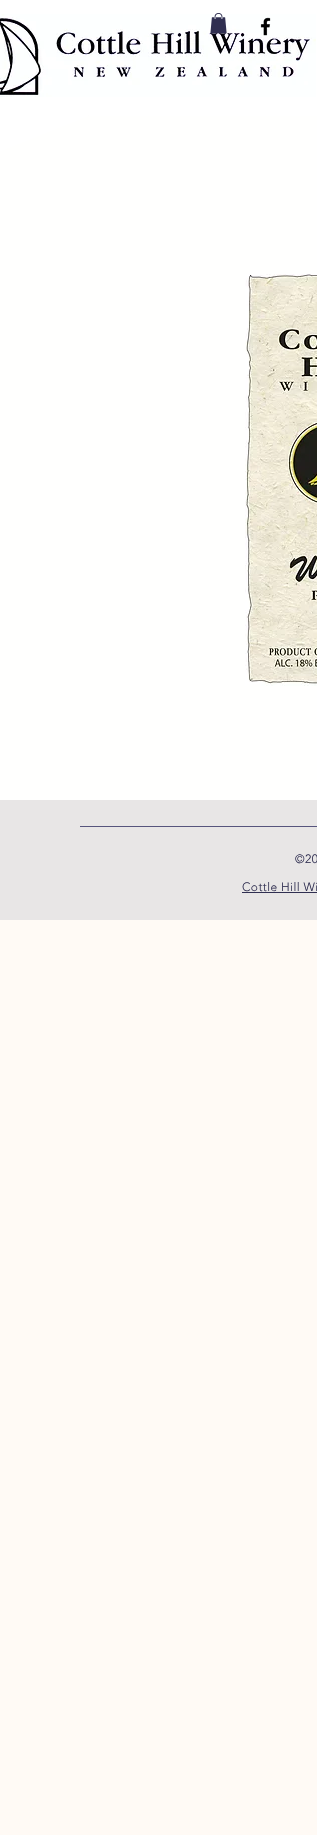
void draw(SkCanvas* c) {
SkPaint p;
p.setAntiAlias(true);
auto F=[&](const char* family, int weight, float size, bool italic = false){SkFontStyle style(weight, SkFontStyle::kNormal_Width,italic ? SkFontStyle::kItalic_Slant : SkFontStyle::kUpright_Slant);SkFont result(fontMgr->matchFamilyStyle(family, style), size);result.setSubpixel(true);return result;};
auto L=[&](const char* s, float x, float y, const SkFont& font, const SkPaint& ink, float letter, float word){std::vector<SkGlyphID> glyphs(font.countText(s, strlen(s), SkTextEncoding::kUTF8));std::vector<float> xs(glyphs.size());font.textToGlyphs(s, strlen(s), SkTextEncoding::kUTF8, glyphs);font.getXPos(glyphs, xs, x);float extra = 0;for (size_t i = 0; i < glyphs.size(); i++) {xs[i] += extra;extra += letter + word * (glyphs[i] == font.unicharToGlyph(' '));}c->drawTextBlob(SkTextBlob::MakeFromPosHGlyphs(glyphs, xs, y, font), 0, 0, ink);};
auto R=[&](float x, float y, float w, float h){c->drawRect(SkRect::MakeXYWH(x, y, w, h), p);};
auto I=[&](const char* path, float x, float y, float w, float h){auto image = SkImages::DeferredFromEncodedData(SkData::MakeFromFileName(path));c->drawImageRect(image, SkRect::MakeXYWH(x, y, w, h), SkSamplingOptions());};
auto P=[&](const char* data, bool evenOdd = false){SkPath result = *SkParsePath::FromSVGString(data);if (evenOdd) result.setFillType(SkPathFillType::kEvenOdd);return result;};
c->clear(0xfffffaf5);
p.setColor(0xffffffff);
c->drawPath(P("M-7 154v-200h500z"),p);
R(89,24,228,92);
I("3.png",0,14,316,83);
I("1.png",210,13,17,21);
I("2.png",260,17,11,19);
p.setColor(0xdbffffff);
R(0,116,317,684);
I("4.png",245,274,72,412);
p.setColor(0xffe8e6e6);
R(0,800,317,120);
p.setColor(0xff57557d);
R(80,826,237,1);
auto f1 = F("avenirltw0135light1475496",300,12);
p.setColor(0xff302f51);
L("©20",295,863,f1,p,.4,0);
L("Cottle Hill Wi",242,891,f1,p,.4,0);
R(242,892,75,1);
}
